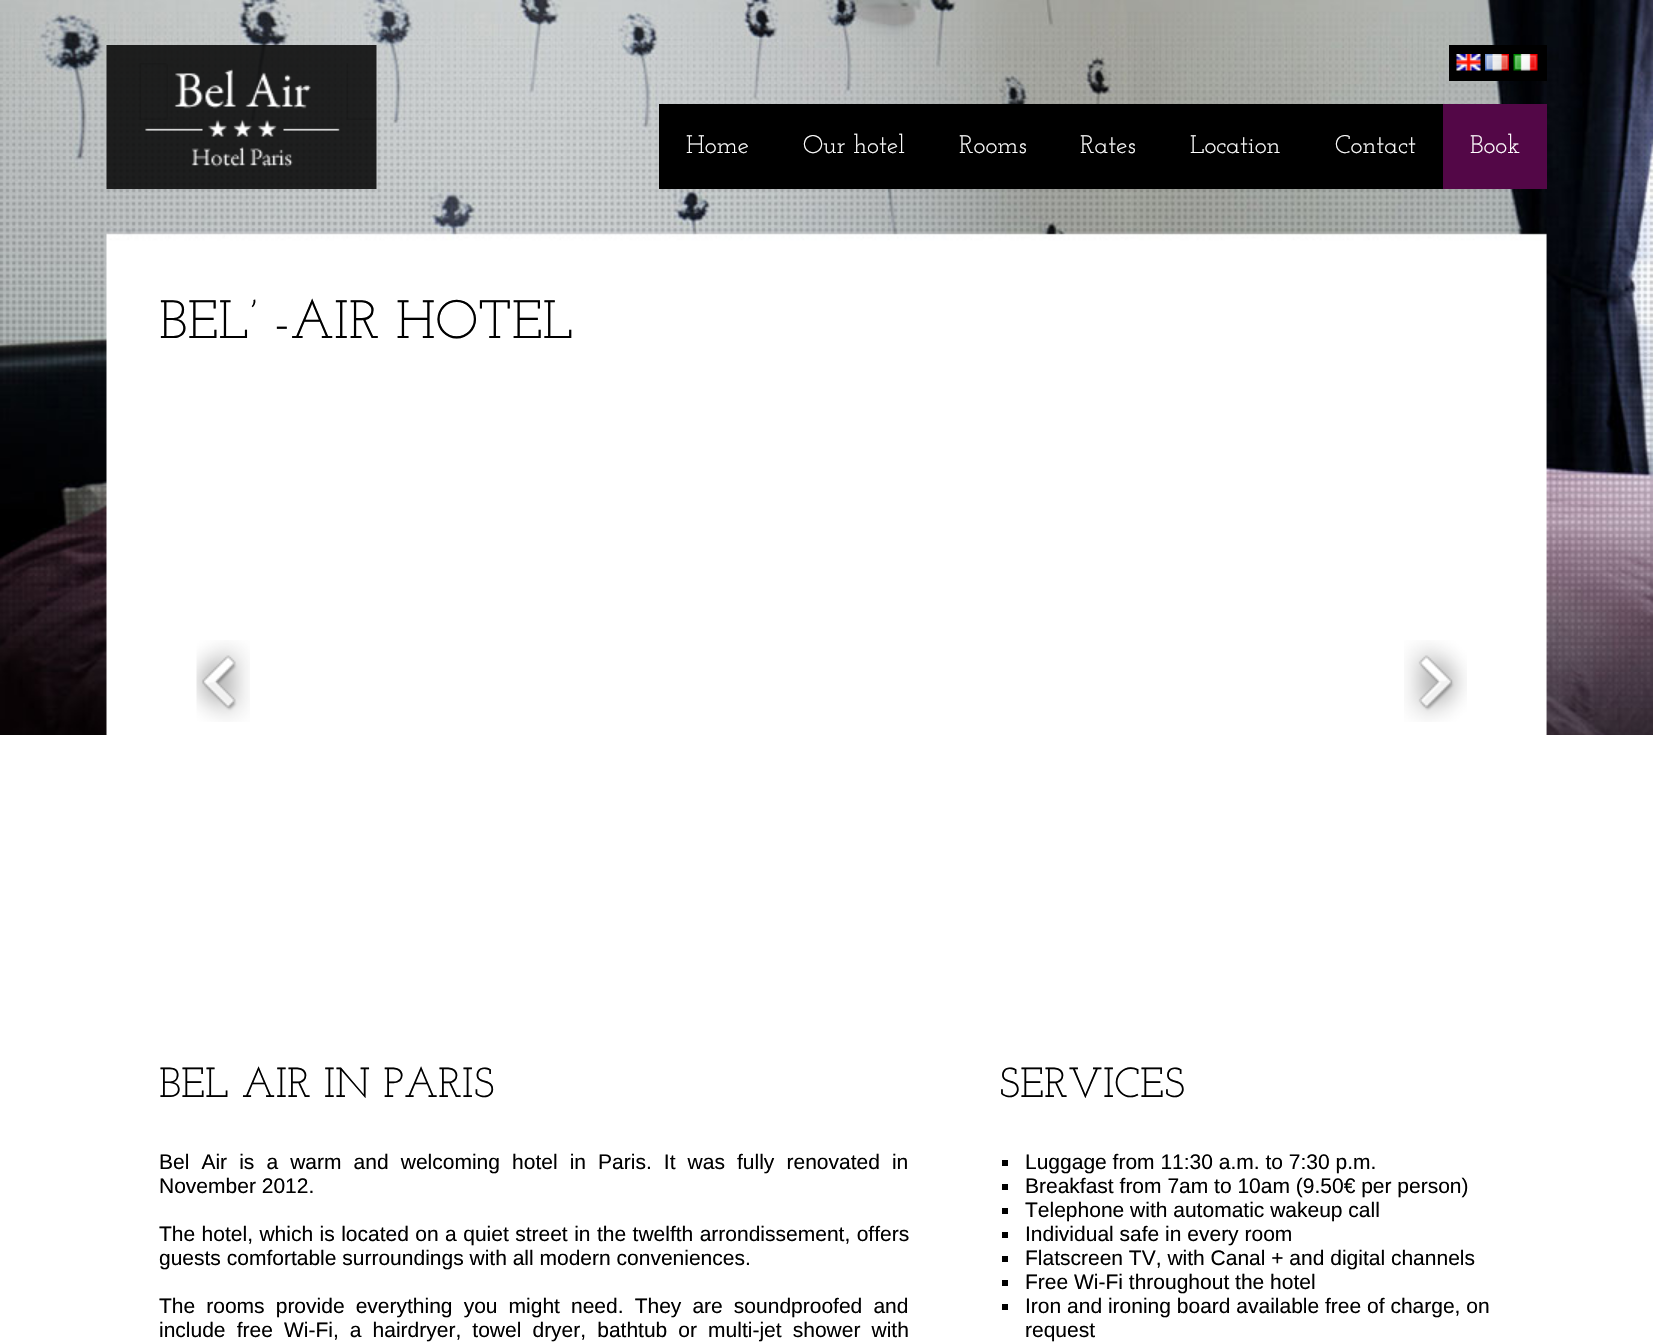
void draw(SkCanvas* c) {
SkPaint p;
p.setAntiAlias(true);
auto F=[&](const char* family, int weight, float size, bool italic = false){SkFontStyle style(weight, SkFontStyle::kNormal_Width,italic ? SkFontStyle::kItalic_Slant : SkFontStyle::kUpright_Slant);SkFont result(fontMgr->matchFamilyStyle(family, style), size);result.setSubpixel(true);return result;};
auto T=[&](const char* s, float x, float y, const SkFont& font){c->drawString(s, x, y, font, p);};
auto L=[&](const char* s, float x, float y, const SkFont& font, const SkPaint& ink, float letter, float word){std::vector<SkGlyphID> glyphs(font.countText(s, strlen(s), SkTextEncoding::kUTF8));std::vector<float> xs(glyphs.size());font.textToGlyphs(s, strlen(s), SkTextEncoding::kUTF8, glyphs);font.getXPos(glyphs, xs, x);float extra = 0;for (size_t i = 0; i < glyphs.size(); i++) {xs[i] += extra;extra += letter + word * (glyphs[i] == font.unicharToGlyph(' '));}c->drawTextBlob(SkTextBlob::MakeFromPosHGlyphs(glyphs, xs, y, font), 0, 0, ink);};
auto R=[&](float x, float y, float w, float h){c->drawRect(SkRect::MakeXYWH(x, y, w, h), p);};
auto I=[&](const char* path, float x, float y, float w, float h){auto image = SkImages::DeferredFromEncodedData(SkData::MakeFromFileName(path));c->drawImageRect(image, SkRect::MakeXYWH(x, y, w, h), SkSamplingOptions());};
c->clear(0xffffffff);
I("1.png",0,0,1653,735);
I("2.png",106,45,271,144);
p.setColor(0xff000000);
R(1449,45,98,36);
I("3.png",1456,54,25,17);
I("4.png",1485,54,24,17);
I("5.png",1513,54,25,17);
R(659,104,784,85);
auto f1 = F("Josefin Slab",100,25.5);
p.setColor(0xffffffff);
T("Home",686,153,f1);
T("Our hotel",803,153,f1);
T("Rooms",959,153,f1);
T("Rates",1080,153,f1);
T("Location",1190,153,f1);
T("Contact",1335,153,f1);
p.setColor(0xff530747);
R(1443,104,104,85);
p.setColor(0xffffffff);
T("Book",1470,153,f1);
auto f2 = F("Josefin Slab",100,54);
p.setColor(0xff000000);
T("BEL’ -AIR HOTEL",159,338,f2);
I("6.png",196,640,54,82);
I("7.png",1404,640,63,82);
auto f3 = F("Josefin Slab",100,42);
T("BEL AIR IN PARIS",159,1097,f3);
auto f4 = F("Liberation Sans",400,21);
L("Bel Air is a warm and welcoming hotel in Paris. It was fully renovated in",159,1169,f4,p,0,6.25);
T("November 2012.",159,1193,f4);
L("The hotel, which is located on a quiet street in the twelfth arrondissement, offers",159,1241,f4,p,0,.6);
T("guests comfortable surroundings with all modern conveniences.",159,1265,f4);
L("The rooms provide everything you might need. They are soundproofed and",159,1313,f4,p,0,5.25);
L("include free Wi-Fi, a hairdryer, towel dryer, bathtub or multi-jet shower with",159,1337,f4,p,0,5.25);
T("SERVICES",999,1097,f3);
R(1002,1160,6,6);
T("Luggage from 11:30 a.m. to 7:30 p.m.",1025,1169,f4);
R(1002,1184,6,6);
T("Breakfast from 7am to 10am (9.50€ per person)",1025,1193,f4);
R(1002,1208,6,6);
T("Telephone with automatic wakeup call",1025,1217,f4);
R(1002,1232,6,6);
T("Individual safe in every room",1025,1241,f4);
R(1002,1256,6,6);
T("Flatscreen TV, with Canal + and digital channels",1025,1265,f4);
R(1002,1280,6,6);
T("Free Wi-Fi throughout the hotel",1025,1289,f4);
R(1002,1304,6,6);
T("Iron and ironing board available free of charge, on",1025,1313,f4);
T("request",1025,1337,f4);
}
